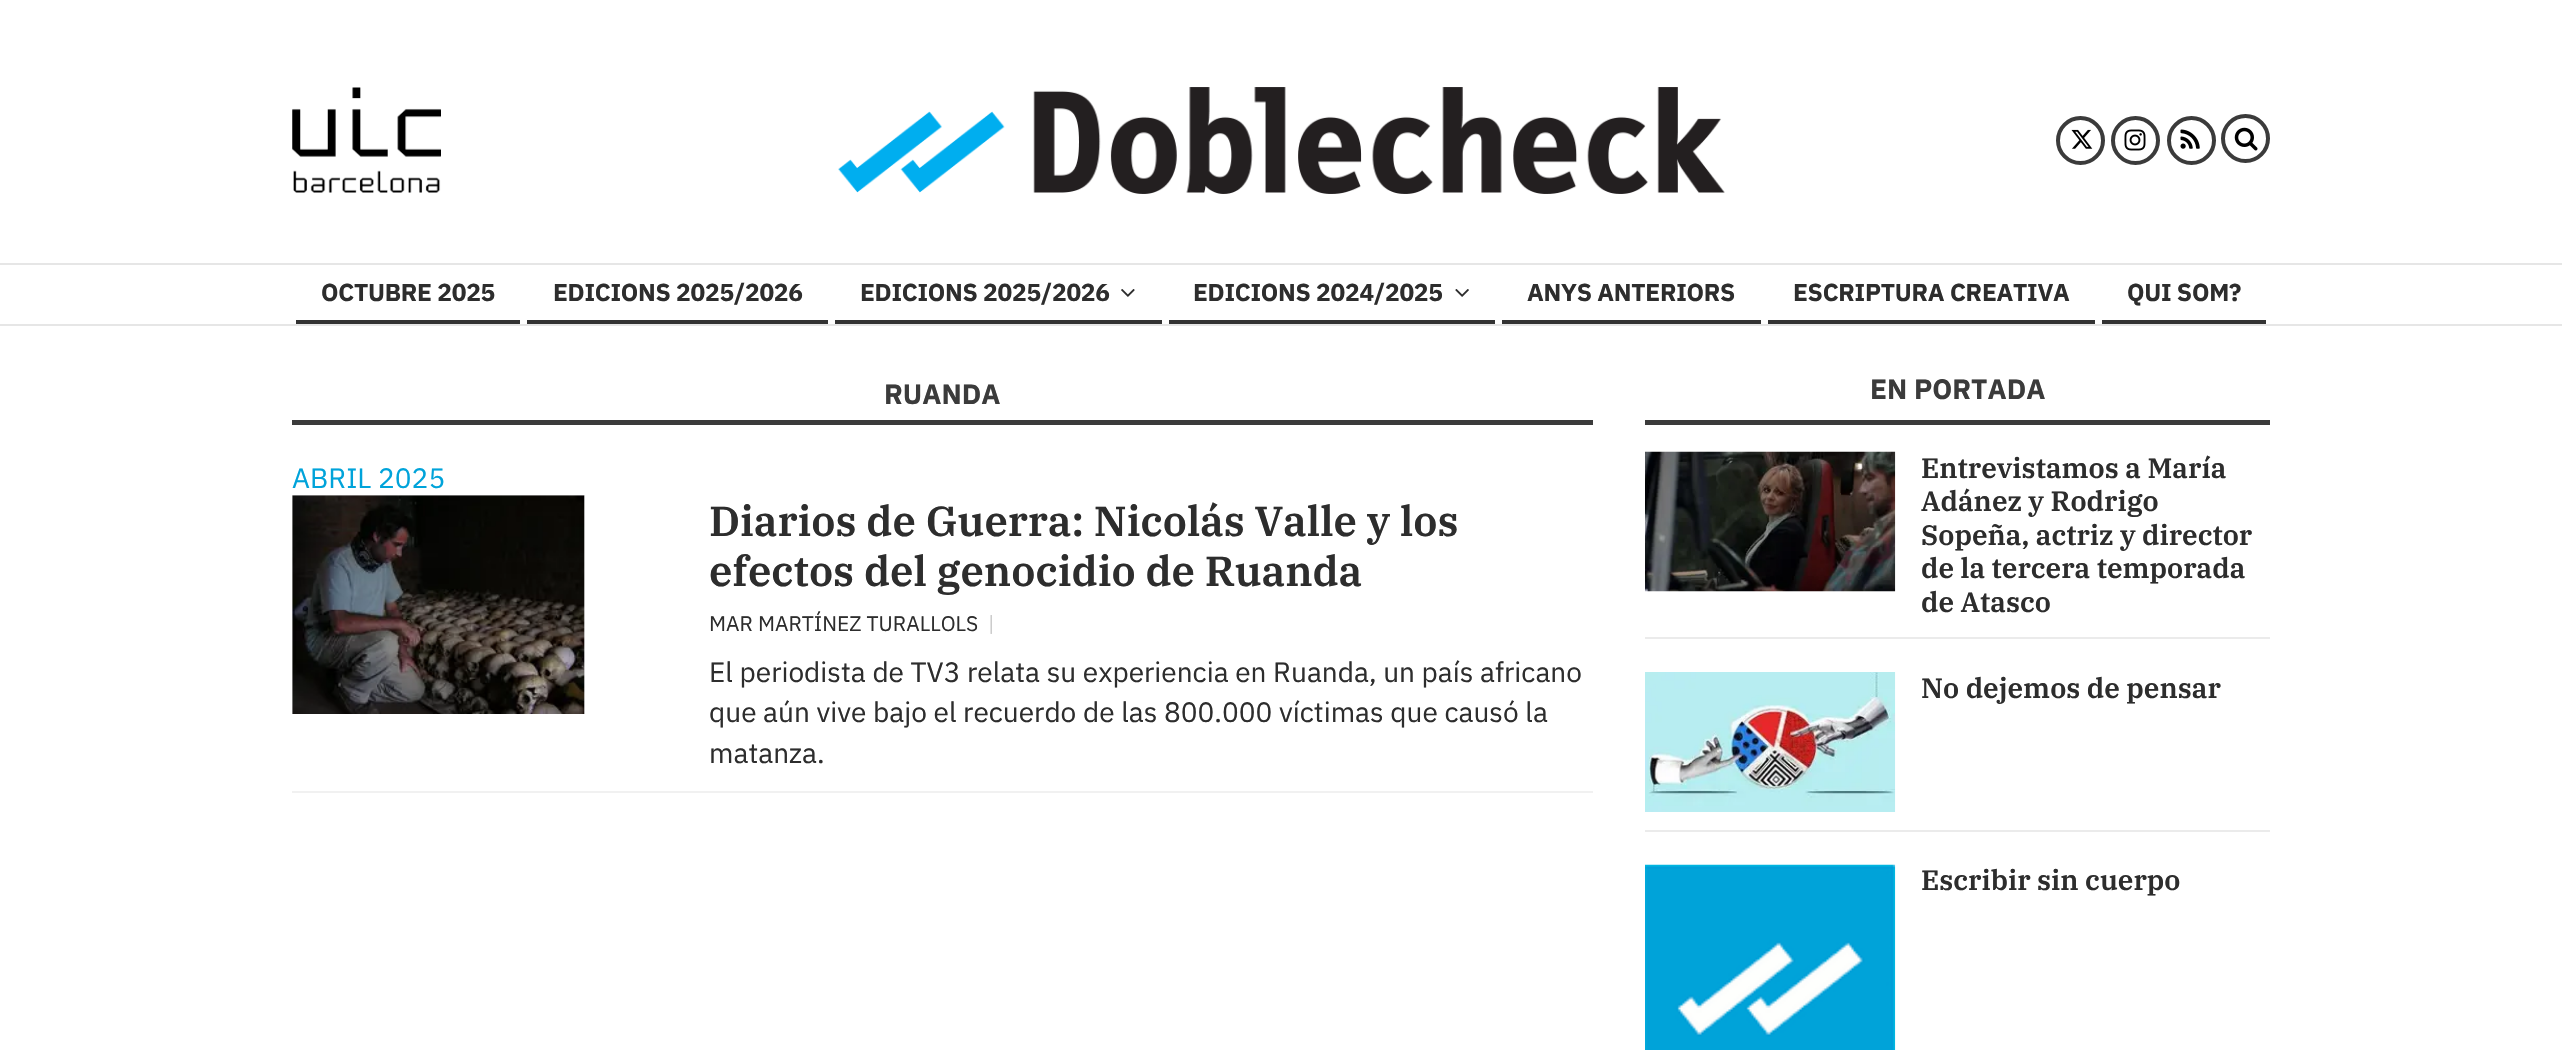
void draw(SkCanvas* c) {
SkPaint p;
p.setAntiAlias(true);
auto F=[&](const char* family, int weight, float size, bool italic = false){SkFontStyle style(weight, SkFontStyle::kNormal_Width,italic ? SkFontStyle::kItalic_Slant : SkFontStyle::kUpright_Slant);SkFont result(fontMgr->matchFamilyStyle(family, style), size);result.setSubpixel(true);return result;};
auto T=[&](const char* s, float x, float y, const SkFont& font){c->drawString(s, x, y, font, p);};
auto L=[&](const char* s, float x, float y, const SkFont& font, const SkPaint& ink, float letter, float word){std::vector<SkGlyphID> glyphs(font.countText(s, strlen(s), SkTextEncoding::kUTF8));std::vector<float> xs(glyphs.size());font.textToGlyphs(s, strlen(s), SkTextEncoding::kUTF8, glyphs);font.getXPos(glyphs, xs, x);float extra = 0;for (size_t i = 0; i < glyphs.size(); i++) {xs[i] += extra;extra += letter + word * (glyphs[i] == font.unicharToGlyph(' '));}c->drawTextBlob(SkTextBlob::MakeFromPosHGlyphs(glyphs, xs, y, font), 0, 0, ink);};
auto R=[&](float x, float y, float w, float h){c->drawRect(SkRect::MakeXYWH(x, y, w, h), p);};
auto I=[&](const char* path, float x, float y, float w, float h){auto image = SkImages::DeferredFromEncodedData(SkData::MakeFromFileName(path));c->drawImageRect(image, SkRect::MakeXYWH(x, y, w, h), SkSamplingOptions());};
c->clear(0xffffffff);
I("1.png",292,87,149,106);
I("2.png",838,87,887,107);
p.setStroke(true);
p.setStrokeWidth(4);
p.setColor(0xff3b3b3b);
c->drawCircle(2080.5,140.5,22.5,p);
I("3.png",2071,129,22,20);
c->drawCircle(2135.5,140.5,22.5,p);
I("4.png",2124,129,22,22);
c->drawCircle(2191.5,140.5,22.5,p);
I("5.png",2180,129,20,20);
c->drawCircle(2245.5,138.5,22.5,p);
I("6.png",2234,127,24,24);
p.setStroke(false);
p.setColor(0xffe6e6e6);
R(0,263,2562,2);
R(0,324,2562,2);
p.setColor(0xff333333);
R(296,320,224,4);
auto f1 = F("IBM Plex Sans",700,24.5);
p.setColor(0xff2d2d2d);
L("OCTUBRE 2025",321,301,f1,p,-.25,0);
p.setColor(0xff333333);
R(527,320,301,4);
p.setColor(0xff2d2d2d);
L("EDICIONS 2025/2026",553,301,f1,p,-.25,0);
p.setColor(0xff333333);
R(835,320,327,4);
p.setColor(0xff2d2d2d);
L("EDICIONS 2025/2026",860,301,f1,p,-.25,0);
I("7.png",1121,289,14,8);
p.setColor(0xff333333);
R(1169,320,326,4);
p.setColor(0xff2d2d2d);
L("EDICIONS 2024/2025",1193,301,f1,p,-.25,0);
I("8.png",1455,289,14,8);
p.setColor(0xff333333);
R(1502,320,259,4);
p.setColor(0xff2d2d2d);
L("ANYS ANTERIORS",1527,301,f1,p,-.25,0);
p.setColor(0xff333333);
R(1768,320,327,4);
p.setColor(0xff2d2d2d);
L("ESCRIPTURA CREATIVA",1793,301,f1,p,-.25,0);
p.setColor(0xff333333);
R(2102,320,164,4);
p.setColor(0xff2d2d2d);
L("QUI SOM?",2127,301,f1,p,-.25,0);
p.setColor(0xff3b3b3b);
R(292,420,1301,5);
auto f2 = F("IBM Plex Sans",700,28);
T("RUANDA",884,404,f2);
p.setColor(0xfff1f1f1);
R(292,791,1301,2);
auto f3 = F("IBM Plex Sans",400,28);
p.setColor(0xff00a3da);
T("ABRIL 2025",292,488,f3);
p.setColor(0xffededed);
R(292,495,293,219);
I("9.png",292,495,293,219);
auto f4 = F("IBM Plex Serif",600,42);
p.setColor(0xff2d2d2d);
T("Diarios de Guerra: Nicolás Valle y los",709,536,f4);
T("efectos del genocidio de Ruanda",709,586,f4);
auto f5 = F("IBM Plex Sans",400,21);
T("MAR MARTÍNEZ TURALLOLS",709,631,f5);
p.setColor(0xffcccccc);
T("|",988,631,f5);
p.setColor(0xff2d2d2d);
T("El periodista de TV3 relata su experiencia en Ruanda, un país africano",709,682,f3);
T("que aún vive bajo el recuerdo de las 800.000 víctimas que causó la",709,722,f3);
T("matanza.",709,763,f3);
p.setColor(0xff3b3b3b);
R(1645,420,625,5);
T("EN PORTADA",1870,399,f2);
p.setColor(0xffebebeb);
R(1645,637,625,2);
I("10.png",1645,451,251,141);
auto f6 = F("IBM Plex Serif",600,28);
p.setColor(0xff2d2d2d);
T("Entrevistamos a María",1921,478,f6);
T("Adánez y Rodrigo",1921,511,f6);
T("Sopeña, actriz y director",1921,545,f6);
T("de la tercera temporada",1921,578,f6);
T("de Atasco",1921,612,f6);
p.setColor(0xffebebeb);
R(1645,830,625,2);
I("11.png",1645,672,251,140);
p.setColor(0xff2d2d2d);
T("No dejemos de pensar",1921,698,f6);
I("12.png",1645,864,251,186);
T("Escribir sin cuerpo",1921,890,f6);
}
